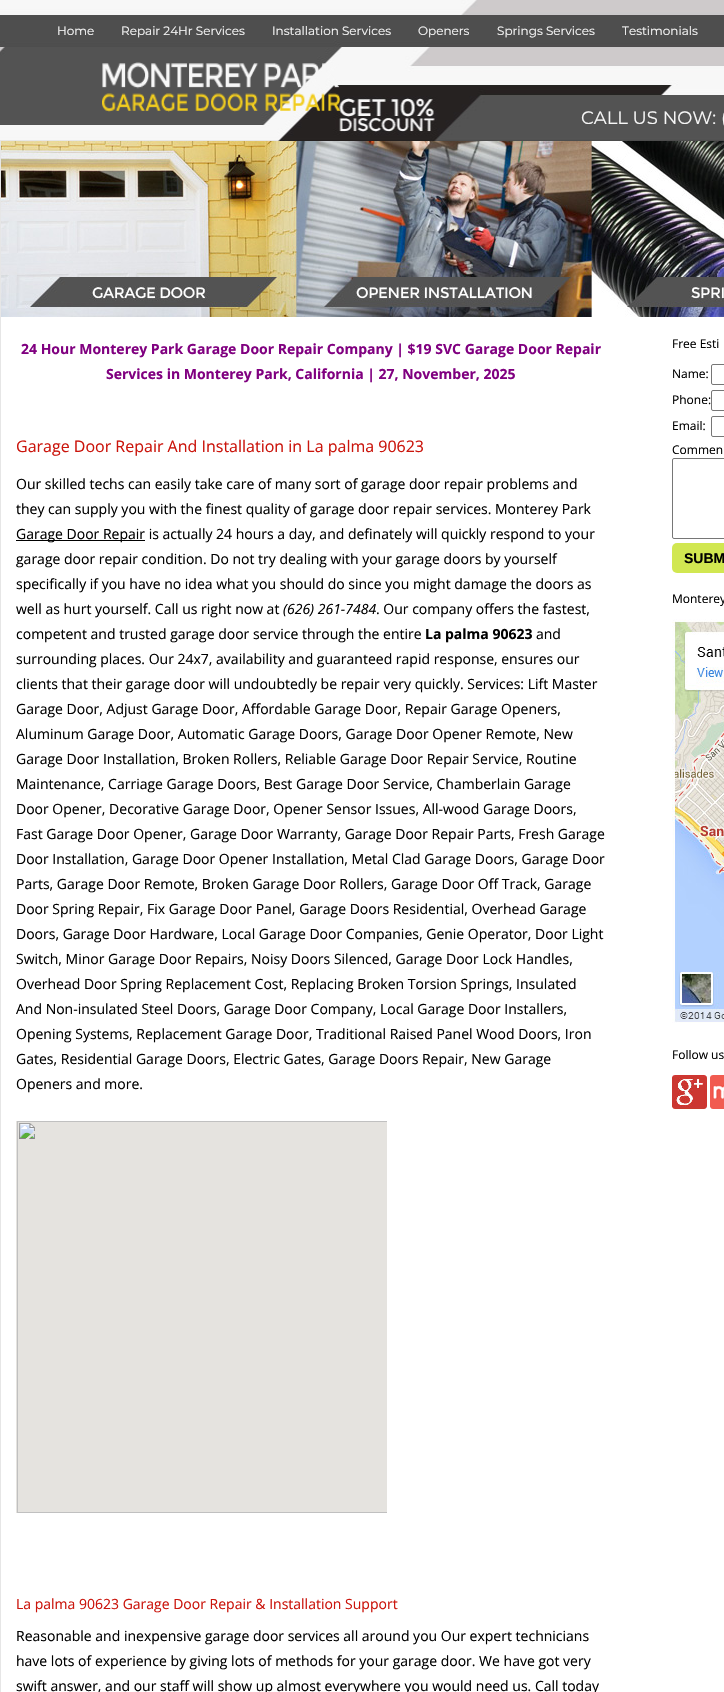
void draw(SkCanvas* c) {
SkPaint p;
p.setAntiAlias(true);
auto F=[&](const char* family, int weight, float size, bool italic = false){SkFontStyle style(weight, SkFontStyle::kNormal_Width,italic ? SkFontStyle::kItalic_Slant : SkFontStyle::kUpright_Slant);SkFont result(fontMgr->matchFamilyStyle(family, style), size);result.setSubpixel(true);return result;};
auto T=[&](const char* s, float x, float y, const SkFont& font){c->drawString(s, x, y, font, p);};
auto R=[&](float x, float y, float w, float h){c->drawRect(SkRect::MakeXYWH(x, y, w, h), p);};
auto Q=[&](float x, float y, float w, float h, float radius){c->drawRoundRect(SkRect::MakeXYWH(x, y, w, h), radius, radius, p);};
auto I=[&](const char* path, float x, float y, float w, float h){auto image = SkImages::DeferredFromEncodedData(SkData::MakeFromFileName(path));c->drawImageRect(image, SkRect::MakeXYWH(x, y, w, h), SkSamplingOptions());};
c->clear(0xffffffff);
I("1.png",0,0,724,141);
auto f1 = F("Montserrat",400,12);
p.setColor(0xfff7f7f7);
T("Home",57,35,f1);
T("Repair 24Hr Services",121,35,f1);
T("Installation Services",272,35,f1);
T("Openers",418,35,f1);
T("Springs Services",497,35,f1);
T("Testimonials",622,35,f1);
I("2.png",102,62,239,50);
auto f2 = F("Montserrat",400,18);
T("CALL US NOW: (",581,124,f2);
p.setColor(0xffe6e6e6);
R(0,141,1,1551);
I("3.png",1,141,723,176);
auto f3 = F("Open Sans",700,14);
p.setColor(0xff800080);
T("24 Hour Monterey Park Garage Door Repair Company | $19 SVC Garage Door Repair",21,354,f3);
T("Services in Monterey Park, California | 27, November, 2025",106,379,f3);
auto f4 = F("Open Sans",400,16);
p.setColor(0xffcb150c);
T("Garage Door Repair And Installation in La palma 90623",16,452,f4);
auto f5 = F("Open Sans",400,14);
p.setColor(0xff000000);
T("Our skilled techs can easily take care of many sort of garage door repair problems and",16,489,f5);
T("they can supply you with the finest quality of garage door repair services. Monterey Park",16,514,f5);
R(16,540,129,1);
T("Garage Door Repair is actually 24 hours a day, and definately will quickly respond to your",16,539,f5);
T("garage door repair condition. Do not try dealing with your garage doors by yourself",16,564,f5);
T("specifically if you have no idea what you should do since you might damage the doors as",16,589,f5);
T("well as hurt yourself. Call us right now at",16,614,f5);
auto f6 = F("Open Sans",400,14,true);
T("(626) 261-7484",283,614,f6);
T(". Our company offers the fastest,",376,614,f5);
T("competent and trusted garage door service through the entire",16,639,f5);
T("La palma 90623",425,639,f3);
T("and",536,639,f5);
T("surrounding places. Our 24x7, availability and guaranteed rapid response, ensures our",16,664,f5);
T("clients that their garage door will undoubtedly be repair very quickly. Services: Lift Master",16,689,f5);
T("Garage Door, Adjust Garage Door, Affordable Garage Door, Repair Garage Openers,",16,714,f5);
T("Aluminum Garage Door, Automatic Garage Doors, Garage Door Opener Remote, New",16,739,f5);
T("Garage Door Installation, Broken Rollers, Reliable Garage Door Repair Service, Routine",16,764,f5);
T("Maintenance, Carriage Garage Doors, Best Garage Door Service, Chamberlain Garage",16,789,f5);
T("Door Opener, Decorative Garage Door, Opener Sensor Issues, All-wood Garage Doors,",16,814,f5);
T("Fast Garage Door Opener, Garage Door Warranty, Garage Door Repair Parts, Fresh Garage",16,839,f5);
T("Door Installation, Garage Door Opener Installation, Metal Clad Garage Doors, Garage Door",16,864,f5);
T("Parts, Garage Door Remote, Broken Garage Door Rollers, Garage Door Off Track, Garage",16,889,f5);
T("Door Spring Repair, Fix Garage Door Panel, Garage Doors Residential, Overhead Garage",16,914,f5);
T("Doors, Garage Door Hardware, Local Garage Door Companies, Genie Operator, Door Light",16,939,f5);
T("Switch, Minor Garage Door Repairs, Noisy Doors Silenced, Garage Door Lock Handles,",16,964,f5);
T("Overhead Door Spring Replacement Cost, Replacing Broken Torsion Springs, Insulated",16,989,f5);
T("And Non-insulated Steel Doors, Garage Door Company, Local Garage Door Installers,",16,1014,f5);
T("Opening Systems, Replacement Garage Door, Traditional Raised Panel Wood Doors, Iron",16,1039,f5);
T("Gates, Residential Garage Doors, Electric Gates, Garage Doors Repair, New Garage",16,1064,f5);
T("Openers and more.",16,1089,f5);
I("4.png",16,1121,371,392);
p.setColor(0xffcb150c);
T("La palma 90623 Garage Door Repair & Installation Support",16,1609,f5);
p.setColor(0xff000000);
T("Reasonable and inexpensive garage door services all around you Our expert technicians",16,1641,f5);
T("have lots of experience by giving lots of methods for your garage door. We have got very",16,1666,f5);
T("swift answer, and our staff will show up almost everywhere you would need us. Call today",16,1691,f5);
auto f7 = F("Open Sans",400,12);
T("Free Esti",672,348,f7);
T("Name:",672,378,f7);
p.setStroke(true);
p.setStrokeWidth(1);
p.setColor(0xff767676);
c->drawRoundRect(SkRect::MakeXYWH(711.5,364.5,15,20),1.5,1.5,p);
p.setStroke(false);
p.setColor(0xff000000);
T("Phone:",672,404,f7);
p.setStroke(true);
p.setColor(0xff767676);
c->drawRoundRect(SkRect::MakeXYWH(711.5,390.5,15,20),1.5,1.5,p);
p.setStroke(false);
p.setColor(0xff000000);
T("Email:",672,430,f7);
p.setStroke(true);
p.setColor(0xff767676);
c->drawRoundRect(SkRect::MakeXYWH(711.5,416.5,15,20),1.5,1.5,p);
p.setStroke(false);
p.setColor(0xff000000);
T("Commen",672,454,f7);
p.setStroke(true);
p.setColor(0xff767676);
c->drawRoundRect(SkRect::MakeXYWH(672.5,458.5,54,80),1.5,1.5,p);
p.setStroke(false);
p.setColor(0xffd1e751);
Q(672,543,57,30,5);
auto f8 = F("Liberation Sans",700,14);
p.setColor(0xff000000);
T("SUBM",684,563,f8);
T("Monterey",672,603,f7);
I("5.png",672,619,52,404);
T("Follow us",672,1059,f7);
I("6.png",672,1075,35,34);
I("7.png",710,1075,14,34);
}
